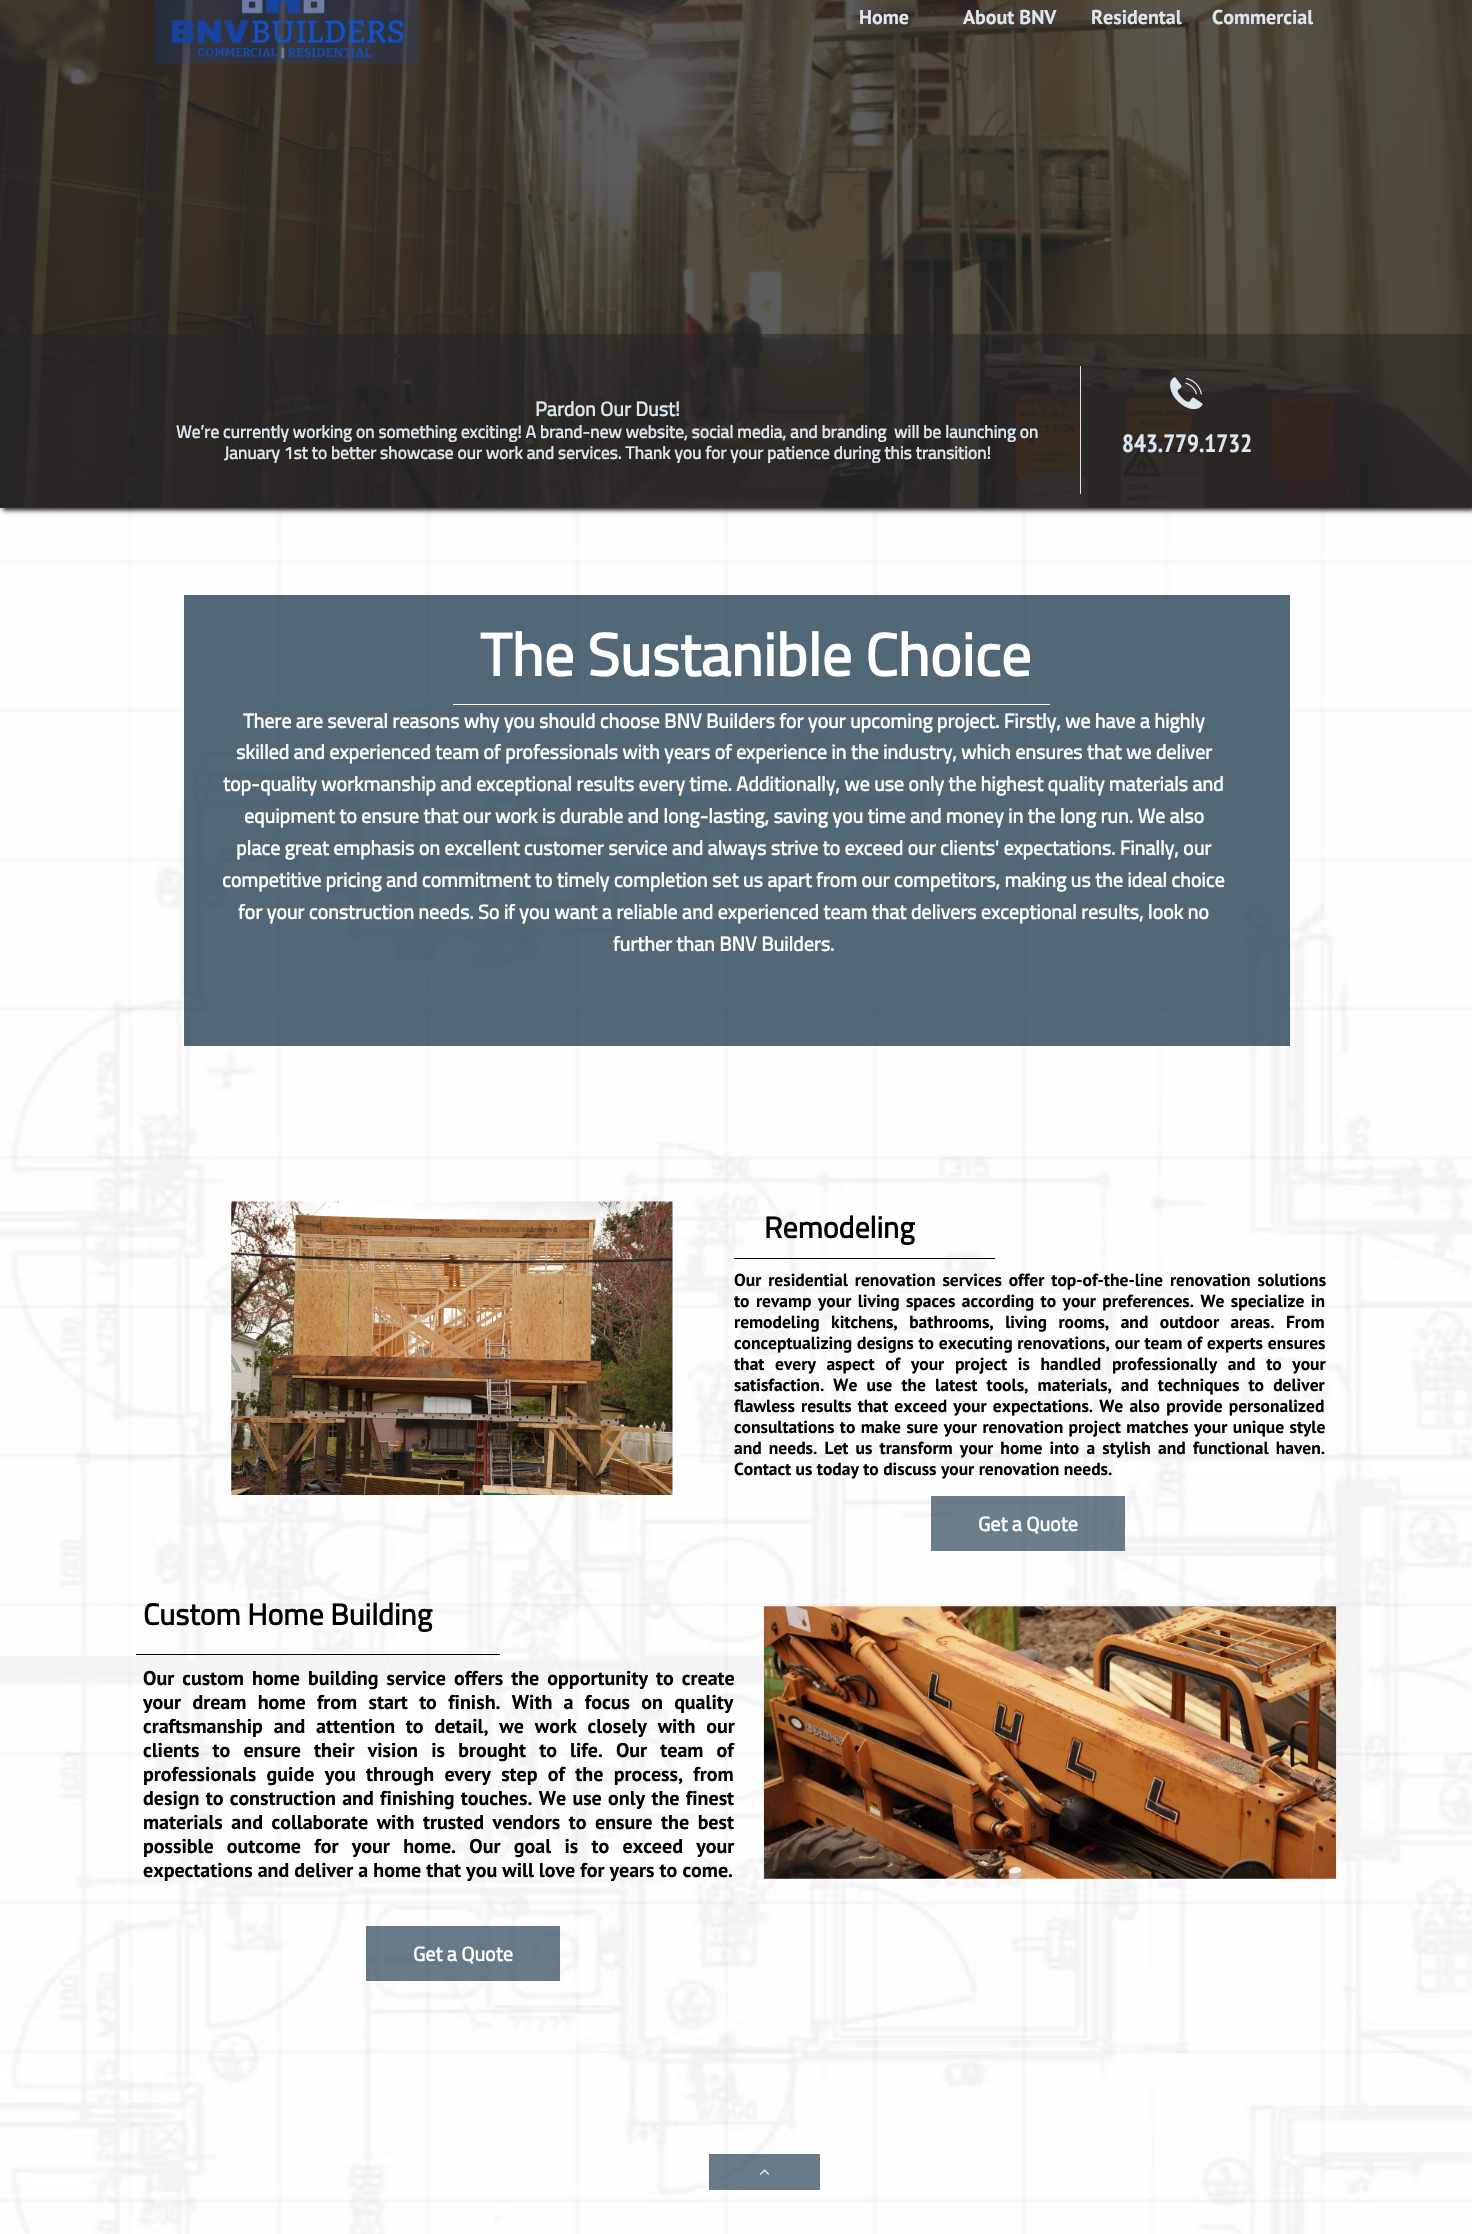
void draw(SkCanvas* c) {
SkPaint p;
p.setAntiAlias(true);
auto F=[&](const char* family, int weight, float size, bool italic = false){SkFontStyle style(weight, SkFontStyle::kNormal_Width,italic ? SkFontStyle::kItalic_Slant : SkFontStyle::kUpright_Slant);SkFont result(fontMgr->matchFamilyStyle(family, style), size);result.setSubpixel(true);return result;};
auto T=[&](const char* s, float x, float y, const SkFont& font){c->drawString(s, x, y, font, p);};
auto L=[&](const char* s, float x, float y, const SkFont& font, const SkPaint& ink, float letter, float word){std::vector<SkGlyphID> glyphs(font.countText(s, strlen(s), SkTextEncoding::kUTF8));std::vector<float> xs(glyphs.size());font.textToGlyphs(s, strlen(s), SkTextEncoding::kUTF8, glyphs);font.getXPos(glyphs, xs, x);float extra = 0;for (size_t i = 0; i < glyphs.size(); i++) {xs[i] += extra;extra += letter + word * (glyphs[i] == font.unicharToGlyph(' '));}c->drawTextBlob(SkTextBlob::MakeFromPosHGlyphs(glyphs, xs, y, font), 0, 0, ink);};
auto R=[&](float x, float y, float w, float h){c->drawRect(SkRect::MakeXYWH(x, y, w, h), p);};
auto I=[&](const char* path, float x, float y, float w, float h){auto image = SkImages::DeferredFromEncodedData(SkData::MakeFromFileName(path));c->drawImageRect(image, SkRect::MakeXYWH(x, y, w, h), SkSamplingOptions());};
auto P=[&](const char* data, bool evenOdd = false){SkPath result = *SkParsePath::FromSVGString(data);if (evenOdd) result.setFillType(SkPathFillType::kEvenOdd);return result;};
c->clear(0xffffffff);
I("1.png",0,0,1472,2234);
I("2.png",0,0,1472,508);
p.setColor(0xa3000000);
R(0,0,1472,508);
c->save();
c->clipPath(P("M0 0h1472v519h-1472zm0-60h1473v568h-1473z",true),true);
p.setColor(0xf0000000);
p.setMaskFilter(SkMaskFilter::MakeBlur(kNormal_SkBlurStyle, 2.5));
c->drawRect(SkRect::MakeXYWH(3,-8,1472,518),p);
p.setMaskFilter(nullptr);
c->restore();
I("3.png",171,0,233,59);
p.setColor(0x301245a8);
R(156,0,263,64);
auto f1 = F("PT Sans",700,20);
p.setColor(0xffdbe7ef);
T("Home",859,24,f1);
T("About BNV",963,24,f1);
T("Residental",1091,24,f1);
T("Commercial",1212,24,f1);
p.setColor(0x82242424);
R(0,334,1472,174);
p.setColor(0xf0e5f2fb);
R(1080,366,1,128);
I("4.png",1170,377,33,33);
auto f2 = F("Titillium Web",700,20);
p.setColor(0xffdbe7ef);
T("Pardon Our Dust!",535,416,f2);
auto f3 = F("Titillium Web",700,17.5);
T("We’re currently working on something exciting! A brand-new website, social media, and branding  will be launching on",176,438,f3);
T("January 1st to better showcase our work and services. Thank you for your patience during this transition!",224,459,f3);
auto f4 = F("PT Sans Narrow",700,25);
T("843.779.1732",1122,452,f4);
p.setColor(0xb30a283d);
R(184,595,1106,451);
auto f5 = F("Titillium Web",700,60);
p.setColor(0xffffffff);
T("The Sustanible Choice",480,676,f5);
R(453,704,597,1);
T("There are several reasons why you should choose BNV Builders for your upcoming project. Firstly, we have a highly",243,728,f2);
T("skilled and experienced team of professionals with years of experience in the industry, which ensures that we deliver",236,759,f2);
T("top-quality workmanship and exceptional results every time. Additionally, we use only the highest quality materials and",223,791,f2);
T("equipment to ensure that our work is durable and long-lasting, saving you time and money in the long run. We also",244,823,f2);
T("place great emphasis on excellent customer service and always strive to exceed our clients' expectations. Finally, our",236,855,f2);
T("competitive pricing and commitment to timely completion set us apart from our competitors, making us the ideal choice",222,887,f2);
T("for your construction needs. So if you want a reliable and experienced team that delivers exceptional results, look no",238,919,f2);
T("further than BNV Builders.",613,951,f2);
I("5.png",231,1201,442,294);
auto f6 = F("Titillium Web",700,30);
p.setColor(0xff000000);
T("Remodeling",764,1238,f6);
R(734,1258,261,1);
auto f7 = F("PT Sans",700,17.5);
L("Our residential renovation services offer top-of-the-line renovation solutions",734,1286,f7,p,0,2.5);
L("to revamp your living spaces according to your preferences. We specialize in",734,1307,f7,p,0,2);
L("remodeling kitchens, bathrooms, living rooms, and outdoor areas. From",734,1328,f7,p,0,7);
L("conceptualizing designs to executing renovations, our team of experts ensures",734,1349,f7,p,0,.4);
L("that every aspect of your project is handled professionally and to your",734,1370,f7,p,0,6.25);
L("satisfaction. We use the latest tools, materials, and techniques to deliver",734,1391,f7,p,0,4.75);
L("flawless results that exceed your expectations. We also provide personalized",734,1412,f7,p,0,1.75);
L("consultations to make sure your renovation project matches your unique style",734,1433,f7,p,0,1);
L("and needs. Let us transform your home into a stylish and functional haven.",734,1454,f7,p,0,2.75);
T("Contact us today to discuss your renovation needs.",734,1475,f7);
p.setColor(0x990a283d);
R(931,1496,194,55);
p.setColor(0xffffffff);
T("Get a Quote",978,1531,f2);
p.setColor(0xff000000);
T("Custom Home Building",143,1625,f6);
I("6.png",763,1606,574,273);
R(136,1654,364,1);
L("Our custom home building service offers the opportunity to create",143,1685,f1,p,0,3);
L("your dream home from start to finish. With a focus on quality",143,1709,f1,p,0,6.25);
L("craftsmanship and attention to detail, we work closely with our",143,1733,f1,p,0,5.75);
L("clients to ensure their vision is brought to life. Our team of",143,1757,f1,p,0,8.1);
L("professionals guide you through every step of the process, from",143,1781,f1,p,0,5.25);
L("design to construction and finishing touches. We use only the finest",143,1805,f1,p,0,1.25);
L("materials and collaborate with trusted vendors to ensure the best",143,1829,f1,p,0,3.5);
L("possible outcome for your home. Our goal is to exceed your",143,1853,f1,p,0,8.25);
T("expectations and deliver a home that you will love for years to come.",143,1877,f1);
p.setColor(0x9c0a283d);
R(366,1926,194,55);
p.setColor(0xffffffff);
T("Get a Quote",413,1961,f2);
p.setColor(0x9c0a283d);
R(709,2154,111,36);
I("7.png",760,2169,10,6);
}
